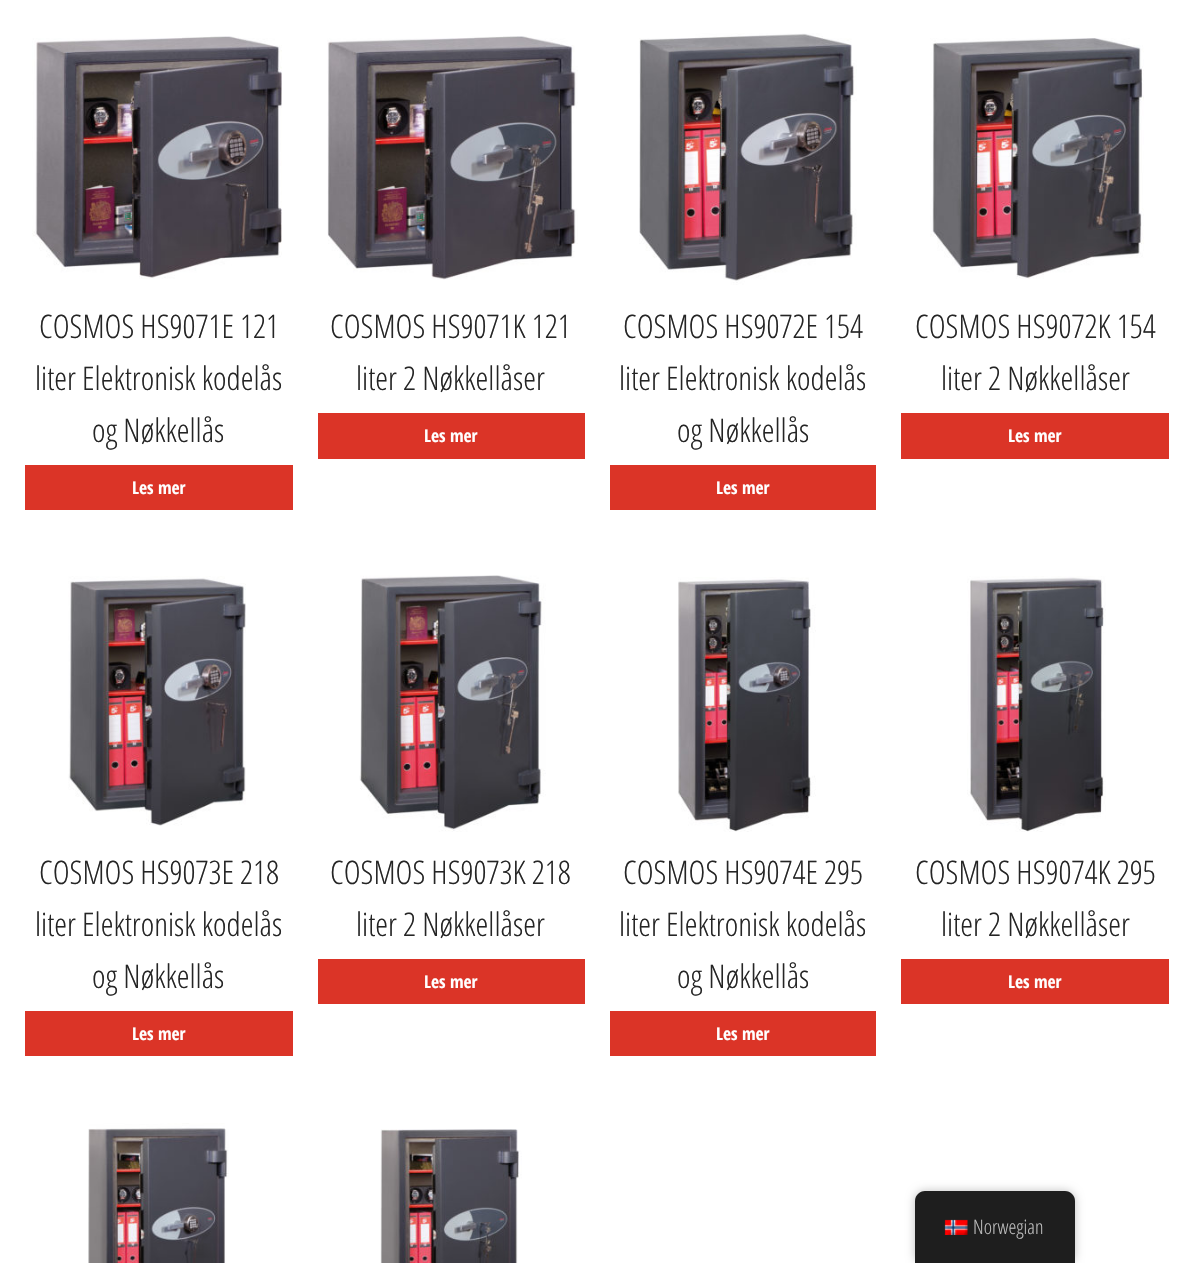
void draw(SkCanvas* c) {
SkPaint p;
p.setAntiAlias(true);
auto F=[&](const char* family, int weight, float size, bool italic = false){SkFontStyle style(weight, SkFontStyle::kNormal_Width,italic ? SkFontStyle::kItalic_Slant : SkFontStyle::kUpright_Slant);SkFont result(fontMgr->matchFamilyStyle(family, style), size);result.setSubpixel(true);return result;};
auto T=[&](const char* s, float x, float y, const SkFont& font){c->drawString(s, x, y, font, p);};
auto R=[&](float x, float y, float w, float h){c->drawRect(SkRect::MakeXYWH(x, y, w, h), p);};
auto I=[&](const char* path, float x, float y, float w, float h){auto image = SkImages::DeferredFromEncodedData(SkData::MakeFromFileName(path));c->drawImageRect(image, SkRect::MakeXYWH(x, y, w, h), SkSamplingOptions());};
auto P=[&](const char* data, bool evenOdd = false){SkPath result = *SkParsePath::FromSVGString(data);if (evenOdd) result.setFillType(SkPathFillType::kEvenOdd);return result;};
c->clear(0xffffffff);
I("1.png",32,36,250,243);
auto f1 = F("Open Sans Condensed",300,32.5);
p.setColor(0xff252525);
T("COSMOS HS9071E 121",39,338,f1);
T("liter Elektronisk kodelås",35,390,f1);
T("og Nøkkellås",92,442,f1);
p.setColor(0xffdb3427);
R(25,465,268,45);
auto f2 = F("Open Sans Condensed",700,17.5);
p.setColor(0xffffffff);
T("Les mer",132,494,f2);
I("2.png",327,36,251,244);
p.setColor(0xff252525);
T("COSMOS HS9071K 121",330,338,f1);
T("liter 2 Nøkkellåser",356,390,f1);
p.setColor(0xffdb3427);
R(318,413,267,46);
p.setColor(0xffffffff);
T("Les mer",424,442,f2);
I("3.png",639,33,218,252);
p.setColor(0xff252525);
T("COSMOS HS9072E 154",623,338,f1);
T("liter Elektronisk kodelås",619,390,f1);
T("og Nøkkellås",677,442,f1);
p.setColor(0xffdb3427);
R(610,465,266,45);
p.setColor(0xffffffff);
T("Les mer",716,494,f2);
I("4.png",930,38,214,241);
p.setColor(0xff252525);
T("COSMOS HS9072K 154",915,338,f1);
T("liter 2 Nøkkellåser",941,390,f1);
p.setColor(0xffdb3427);
R(901,413,268,46);
p.setColor(0xffffffff);
T("Les mer",1008,442,f2);
I("5.png",68,576,178,250);
p.setColor(0xff252525);
T("COSMOS HS9073E 218",39,884,f1);
T("liter Elektronisk kodelås",35,936,f1);
T("og Nøkkellås",92,988,f1);
p.setColor(0xffdb3427);
R(25,1011,268,45);
p.setColor(0xffffffff);
T("Les mer",132,1040,f2);
I("6.png",359,575,187,257);
p.setColor(0xff252525);
T("COSMOS HS9073K 218",330,884,f1);
T("liter 2 Nøkkellåser",356,936,f1);
p.setColor(0xffdb3427);
R(318,959,267,45);
p.setColor(0xffffffff);
T("Les mer",424,988,f2);
I("7.png",678,577,138,255);
p.setColor(0xff252525);
T("COSMOS HS9074E 295",623,884,f1);
T("liter Elektronisk kodelås",619,936,f1);
T("og Nøkkellås",677,988,f1);
p.setColor(0xffdb3427);
R(610,1011,266,45);
p.setColor(0xffffffff);
T("Les mer",716,1040,f2);
I("8.png",967,576,139,256);
p.setColor(0xff252525);
T("COSMOS HS9074K 295",915,884,f1);
T("liter 2 Nøkkellåser",941,936,f1);
p.setColor(0xffdb3427);
R(901,959,268,45);
p.setColor(0xffffffff);
T("Les mer",1008,988,f2);
I("9.png",88,1123,141,140);
I("10.png",380,1129,142,134);
p.setColor(0x40000000);
p.setMaskFilter(SkMaskFilter::MakeBlur(kNormal_SkBlurStyle, 5));
c->drawRoundRect(SkRect::MakeXYWH(915,1191,160,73),10,10,p);
p.setMaskFilter(nullptr);
p.setColor(0xff1e1e1e);
c->drawPath(P("M925 1191h140c5.5 0 10 4.5 10 10v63h-160v-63c0-5.5 4.5-10 10-10z"),p);
I("11.png",944,1219,24,16);
auto f3 = F("Open Sans Condensed",300,20);
p.setColor(0xffbdbdbd);
T("Norwegian",973,1234,f3);
}
